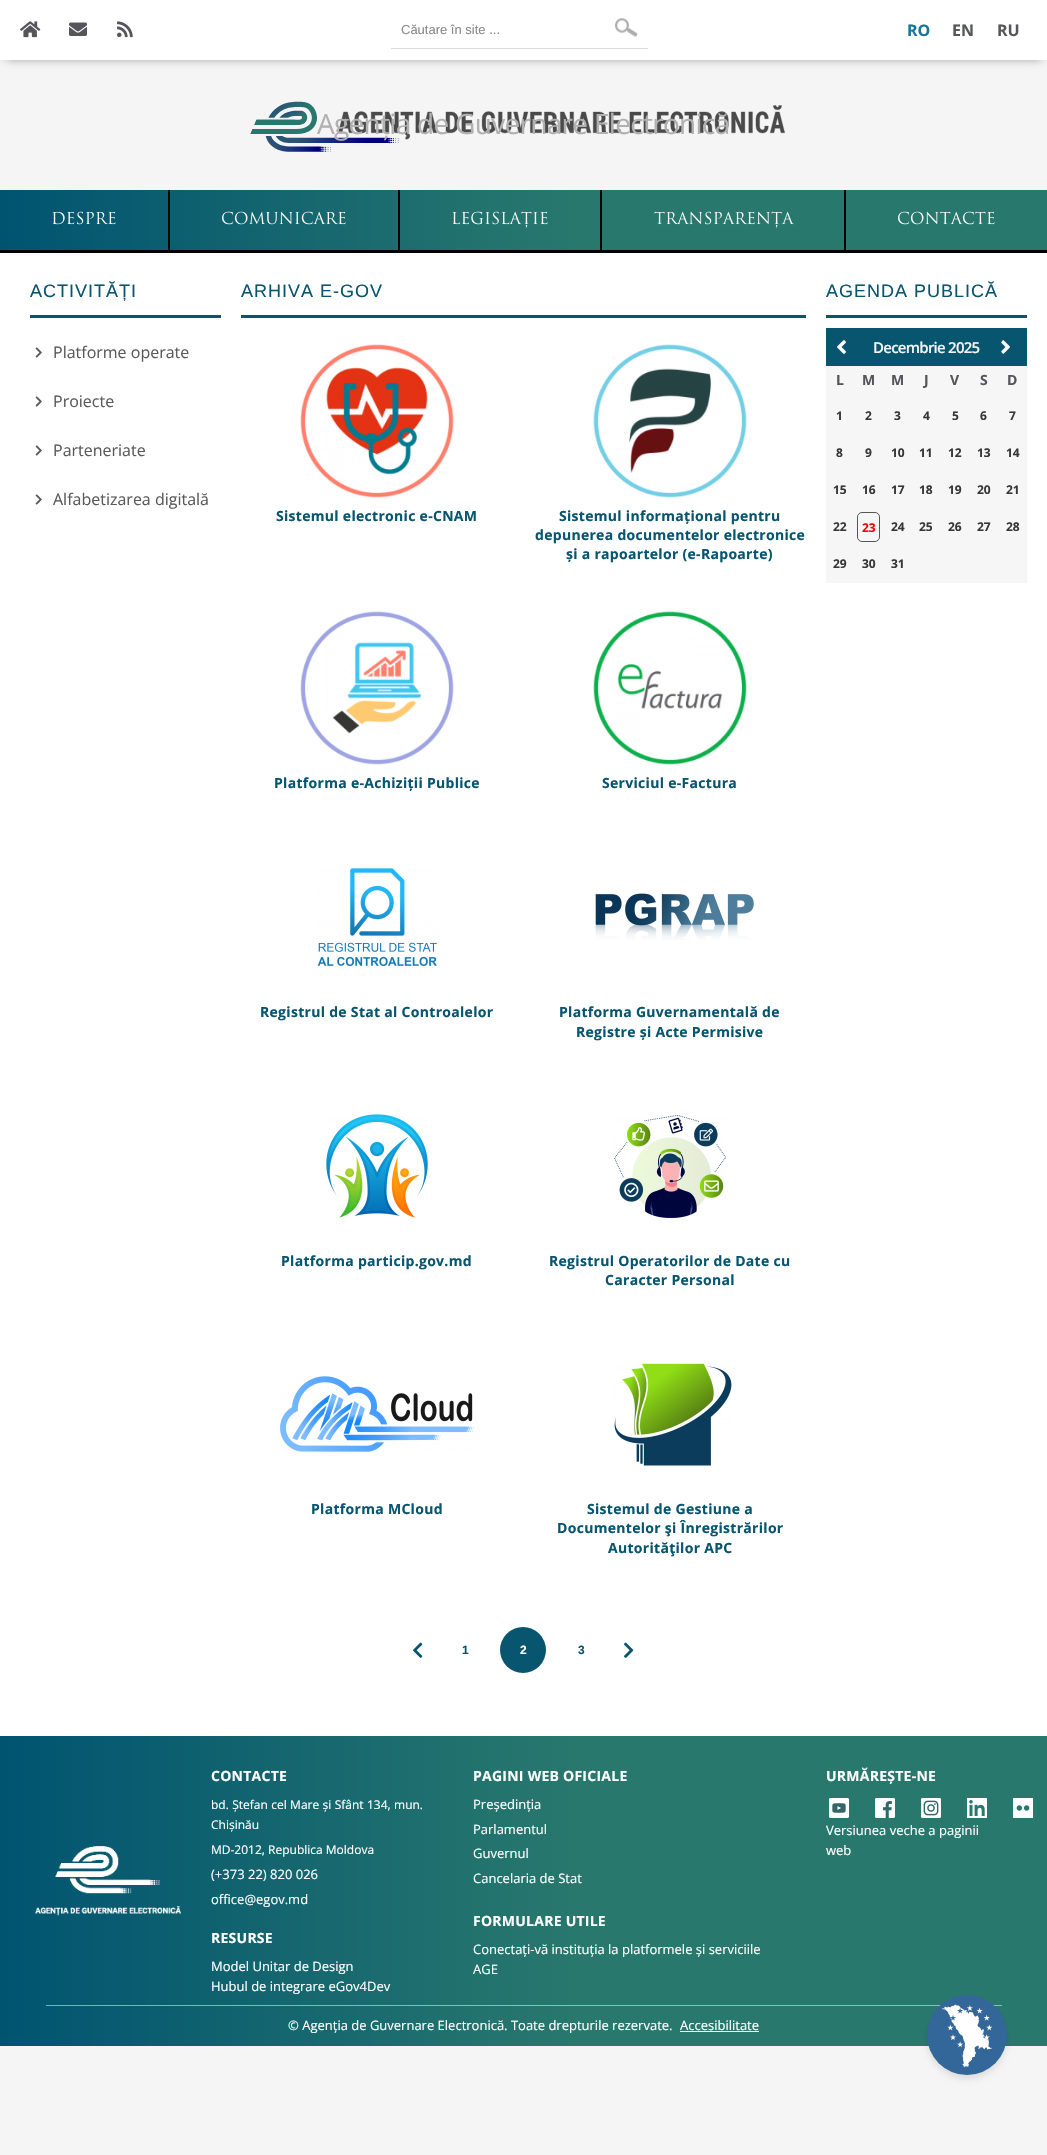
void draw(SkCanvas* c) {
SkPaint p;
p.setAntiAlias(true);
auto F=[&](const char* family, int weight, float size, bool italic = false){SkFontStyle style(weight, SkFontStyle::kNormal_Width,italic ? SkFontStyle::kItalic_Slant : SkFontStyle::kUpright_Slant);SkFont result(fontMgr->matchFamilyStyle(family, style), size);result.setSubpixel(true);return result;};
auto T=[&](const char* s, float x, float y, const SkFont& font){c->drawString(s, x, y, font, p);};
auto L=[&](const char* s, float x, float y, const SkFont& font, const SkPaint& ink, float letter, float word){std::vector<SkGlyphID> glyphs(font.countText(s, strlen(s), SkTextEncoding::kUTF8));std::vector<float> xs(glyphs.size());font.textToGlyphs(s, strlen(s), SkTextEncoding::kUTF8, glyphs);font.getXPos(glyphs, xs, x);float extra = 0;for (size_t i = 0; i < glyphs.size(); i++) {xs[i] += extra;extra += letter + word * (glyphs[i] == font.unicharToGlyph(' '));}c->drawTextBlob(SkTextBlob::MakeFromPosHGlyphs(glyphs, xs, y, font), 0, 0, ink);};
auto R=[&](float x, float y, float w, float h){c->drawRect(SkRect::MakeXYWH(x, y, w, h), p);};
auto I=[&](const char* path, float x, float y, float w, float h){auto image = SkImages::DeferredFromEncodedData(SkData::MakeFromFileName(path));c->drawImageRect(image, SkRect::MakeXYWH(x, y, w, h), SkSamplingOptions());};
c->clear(0xfff5f5f5);
p.setColor(0xff808080);
p.setMaskFilter(SkMaskFilter::MakeBlur(kNormal_SkBlurStyle, 5));
c->drawRect(SkRect::MakeXYWH(6,10,1035,48),p);
p.setMaskFilter(nullptr);
p.setColor(0xffffffff);
R(0,0,1047,60);
I("1.png",20,21,21,17);
I("2.png",69,22,18,14);
I("3.png",117,21,16,17);
p.setColor(0xffdbdbdb);
R(391,48,257,1);
auto f1 = F("Liberation Sans",400,13);
p.setColor(0xff888888);
T("Căutare în site ...",401,34,f1);
I("4.png",615,18,23,19);
auto f2 = F("Open Sans",700,16);
p.setColor(0xff13779b);
T("RO",907,36,f2);
p.setColor(0xff54565a);
T("EN",952,36,f2);
T("RU",997,36,f2);
I("5.png",250,101,536,51);
auto f3 = F("Open Sans",400,28);
p.setColor(0xffb1b1b2);
L("Agenția de Guvernare Electronică",317,134,f3,p,-.7,0);
p.setColor(0xffffffff);
R(0,253,1047,1483);
{
const SkColor colors[] = {0xff005470,0xff29786e};
const float stops[] = {0,.55};
const SkPoint ends[] = {{0,222}, {1047,221}};
p.setShader(SkGradientShader::MakeLinear(ends, colors, stops, 2, SkTileMode::kClamp));
p.setAlpha(255);
}
R(0,190,1047,60);
p.setShader(nullptr);
p.setColor(0xff000000);
R(0,250,1047,3);
p.setColor(0xff000205);
R(168,190,2,60);
I("6.png",52,211,64,14);
R(398,190,2,60);
I("7.png",222,211,124,14);
R(600,190,2,60);
I("8.png",452,211,96,17);
R(844,190,2,60);
I("9.png",654,211,140,17);
I("10.png",898,211,97,14);
p.setColor(0xff085570);
R(30,315,191,3);
auto f4 = F("Liberation Sans",400,18);
L("ACTIVITĂȚI",30,297,f4,p,1,0);
I("11.png",35,347,7,11);
auto f5 = F("Open Sans",400,16);
p.setColor(0xff5a5a5a);
T("Platforme operate",53,358,f5);
I("11.png",35,396,7,11);
T("Proiecte",53,407,f5);
I("11.png",35,445,7,11);
T("Parteneriate",53,456,f5);
I("11.png",35,494,7,11);
T("Alfabetizarea digitală",53,505,f5);
p.setColor(0xff085570);
R(241,315,565,3);
L("ARHIVA E-GOV",241,297,f4,p,1,0);
I("12.png",300,344,154,154);
auto f6 = F("Open Sans",700,14);
L("Sistemul electronic e-CNAM",276,521,f6,p,.3,0);
I("13.png",593,344,154,154);
L("Sistemul informațional pentru",559,521,f6,p,.3,0);
L("depunerea documentelor electronice",535,540,f6,p,.3,0);
L("și a rapoartelor (e-Rapoarte)",566,559,f6,p,.3,0);
I("14.png",300,611,154,154);
L("Platforma e-Achiziții Publice",274,788,f6,p,.3,0);
I("15.png",593,611,154,154);
L("Serviciul e-Factura",602,788,f6,p,.3,0);
I("16.png",317,868,120,98);
L("Registrul de Stat al Controalelor",260,1017,f6,p,.3,0);
I("17.png",595,893,159,47);
L("Platforma Guvernamentală de",559,1017,f6,p,.3,0);
L("Registre și Acte Permisive",576,1037,f6,p,.3,0);
I("18.png",326,1114,102,104);
L("Platforma particip.gov.md",281,1266,f6,p,.3,0);
I("19.png",614,1115,112,104);
L("Registrul Operatorilor de Date cu",549,1266,f6,p,.3,0);
L("Caracter Personal",605,1285,f6,p,.3,0);
I("20.png",280,1376,194,76);
L("Platforma MCloud",311,1514,f6,p,.3,0);
I("21.png",614,1363,118,103);
L("Sistemul de Gestiune a",587,1514,f6,p,.3,0);
L("Documentelor şi Înregistrărilor",557,1533,f6,p,.3,0);
L("Autorităţilor APC",608,1553,f6,p,.3,0);
I("22.png",413,1642,10,16);
auto f7 = F("Liberation Sans",700,12);
T("1",462,1654,f7);
c->drawCircle(523,1650,23,p);
p.setColor(0xffffffff);
T("2",520,1654,f7);
p.setColor(0xff085570);
T("3",578,1654,f7);
I("23.png",624,1642,10,16);
R(826,315,201,3);
L("AGENDA PUBLICĂ",826,297,f4,p,1,0);
R(826,328,201,38);
I("24.png",837,340,9,14);
I("25.png",1001,340,9,14);
auto f8 = F("Open Sans",600,15);
p.setColor(0xfff5f3f3);
L("Decembrie 2025",873,353,f8,p,-.75,0);
p.setColor(0xfff6f6f6);
R(826,366,201,32);
p.setColor(0xff54565a);
T("L",836,385,f6);
T("M",862,385,f6);
T("M",891,385,f6);
T("J",924,385,f6);
T("V",950,385,f6);
T("S",980,385,f6);
T("D",1007,385,f6);
p.setColor(0xfff6f6f6);
R(826,398,201,37);
auto f9 = F("Open Sans",700,12);
p.setColor(0xff373737);
T("1",836,420,f9);
T("2",865,420,f9);
T("3",894,420,f9);
T("4",923,420,f9);
T("5",952,420,f9);
T("6",980,420,f9);
T("7",1009,420,f9);
p.setColor(0xfff6f6f6);
R(826,435,201,37);
p.setColor(0xff373737);
T("8",836,457,f9);
T("9",865,457,f9);
T("10",891,457,f9);
T("11",919,457,f9);
T("12",948,457,f9);
T("13",977,457,f9);
T("14",1006,457,f9);
p.setColor(0xfff6f6f6);
R(826,472,201,37);
p.setColor(0xff373737);
T("15",833,494,f9);
T("16",862,494,f9);
T("17",891,494,f9);
T("18",919,494,f9);
T("19",948,494,f9);
T("20",977,494,f9);
T("21",1006,494,f9);
p.setColor(0xfff6f6f6);
R(826,509,201,37);
p.setColor(0xff373737);
T("22",833,531,f9);
p.setStroke(true);
p.setStrokeWidth(1);
p.setColor(0xff54565a);
c->drawRoundRect(SkRect::MakeXYWH(857.5,512.5,22,29),4.5,4.5,p);
p.setStroke(false);
p.setColor(0xfff50303);
T("23",862,532,f9);
p.setColor(0xff373737);
T("24",891,531,f9);
T("25",919,531,f9);
T("26",948,531,f9);
T("27",977,531,f9);
T("28",1006,531,f9);
p.setColor(0xfff6f6f6);
R(826,546,201,37);
p.setColor(0xff373737);
T("29",833,568,f9);
T("30",862,568,f9);
T("31",891,568,f9);
{
const SkColor colors[] = {0xff005470,0xff29786e};
const float stops[] = {0,.55};
const SkPoint ends[] = {{0,1891}, {1047,1891}};
p.setShader(SkGradientShader::MakeLinear(ends, colors, stops, 2, SkTileMode::kClamp));
p.setAlpha(255);
}
R(0,1736,1047,310);
{
const SkColor colors[] = {0xff80aab8,0xff94bcb7};
const float stops[] = {0,.55};
const SkPoint ends[] = {{0,1891}, {1047,1891}};
p.setShader(SkGradientShader::MakeLinear(ends, colors, stops, 2, SkTileMode::kClamp));
p.setAlpha(255);
}
R(46,2005,956,1);
p.setShader(nullptr);
p.setColor(0x1a000000);
p.setMaskFilter(SkMaskFilter::MakeBlur(kNormal_SkBlurStyle, 3));
c->drawRoundRect(SkRect::MakeXYWH(927,1999,80,80),40,40,p);
p.setMaskFilter(nullptr);
p.setColor(0xff336699);
c->drawCircle(967,2035,40,p);
I("26.png",942,2004,51,64);
I("27.png",35,1846,146,70);
p.setColor(0xffffffff);
L("CONTACTE",211,1781,f6,p,.25,0);
auto f10 = F("Open Sans",400,12);
L("bd. Ștefan cel Mare și Sfânt 134, mun.",211,1809,f10,p,0,.25);
T("Chișinău",211,1829,f10);
T("MD-2012, Republica Moldova",211,1854,f10);
auto f11 = F("Open Sans",400,13);
T("(+373 22) 820 026",211,1879,f11);
T("office@egov.md",211,1904,f11);
L("RESURSE",211,1943,f6,p,.25,0);
T("Model Unitar de Design",211,1971,f11);
T("Hubul de integrare eGov4Dev",211,1991,f11);
L("PAGINI WEB OFICIALE",473,1781,f6,p,.25,0);
T("Președinția",473,1809,f11);
T("Parlamentul",473,1834,f11);
T("Guvernul",473,1858,f11);
T("Cancelaria de Stat",473,1883,f11);
L("FORMULARE UTILE",473,1926,f6,p,.25,0);
T("Conectați-vă instituția la platformele și serviciile",473,1954,f11);
T("AGE",473,1974,f11);
L("URMĂREȘTE-NE",826,1781,f6,p,.25,0);
I("28.png",829,1798,20,20);
I("29.png",875,1798,20,20);
I("30.png",921,1798,20,20);
I("31.png",967,1798,20,20);
I("32.png",1013,1798,20,20);
T("Versiunea veche a paginii",826,1835,f11);
T("web",826,1855,f11);
T("© Agenția de Guvernare Electronică. Toate drepturile rezervate.",288,2030,f11);
T("Accesibilitate",680,2030,f11);
R(680,2031,79,1);
}
